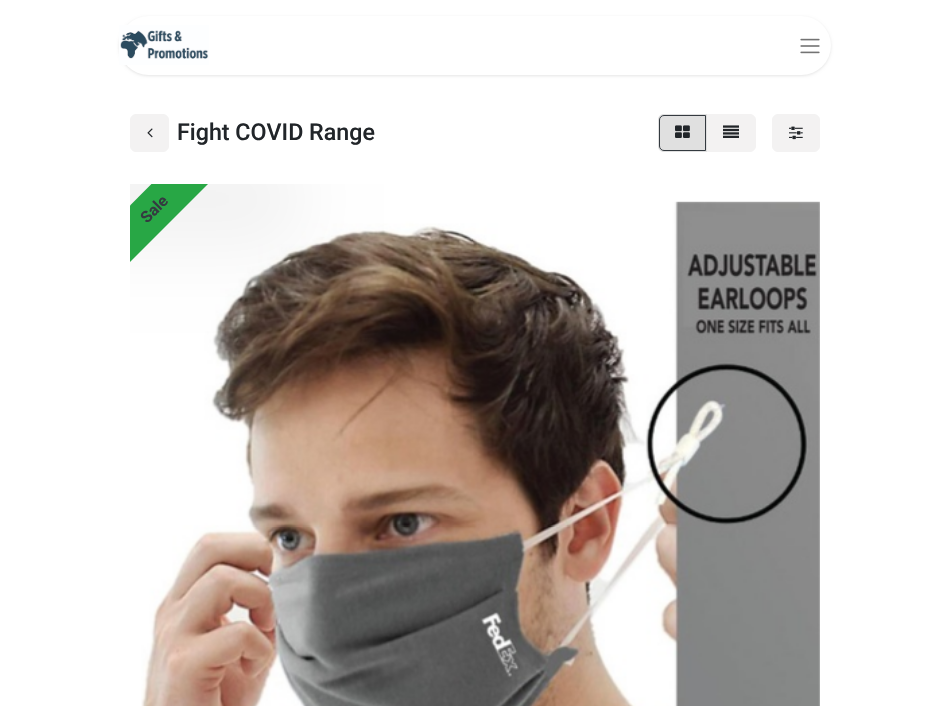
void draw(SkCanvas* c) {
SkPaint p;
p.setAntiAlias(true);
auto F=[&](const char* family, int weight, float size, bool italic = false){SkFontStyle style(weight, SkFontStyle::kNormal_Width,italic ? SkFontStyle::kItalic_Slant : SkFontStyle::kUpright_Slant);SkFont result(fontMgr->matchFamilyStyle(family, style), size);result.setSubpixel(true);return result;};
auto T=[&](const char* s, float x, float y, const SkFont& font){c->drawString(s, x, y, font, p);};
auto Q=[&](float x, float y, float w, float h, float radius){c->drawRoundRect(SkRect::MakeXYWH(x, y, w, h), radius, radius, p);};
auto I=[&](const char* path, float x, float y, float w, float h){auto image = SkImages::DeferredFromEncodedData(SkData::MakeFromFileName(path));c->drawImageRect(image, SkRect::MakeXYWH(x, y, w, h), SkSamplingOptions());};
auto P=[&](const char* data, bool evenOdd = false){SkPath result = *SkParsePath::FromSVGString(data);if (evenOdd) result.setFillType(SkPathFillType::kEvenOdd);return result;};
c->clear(0xffffffff);
p.setColor(0x1a000000);
p.setMaskFilter(SkMaskFilter::MakeBlur(kNormal_SkBlurStyle, 1.5));
c->drawRoundRect(SkRect::MakeXYWH(119,17,712,59),29.5,29.5,p);
p.setMaskFilter(nullptr);
p.setColor(0xfff3f2f2);
c->drawRoundRect(SkRect::MakeXYWH(130.5,114.5,38,37),5.5,5.5,p);
p.setStroke(true);
p.setStrokeWidth(1);
c->drawRoundRect(SkRect::MakeXYWH(130.5,114.5,38,37),5.5,5.5,p);
I("3.png",147,128,6,10);
I("7.png",141,201,679,505);
c->save();
c->clipRect(SkRect::MakeXYWH(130,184,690,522));
p.setStroke(false);
p.setColor(0x0d000000);
p.setMaskFilter(SkMaskFilter::MakeBlur(kNormal_SkBlurStyle, 35));
c->drawRect(SkRect::MakeXYWH(9,149,291,100),p);
p.setMaskFilter(nullptr);
c->restore();
p.setColor(0xffffffff);
Q(119,16,712,59,29.5);
I("1.png",119,25,90,40);
I("2.png",800,38,20,16);
auto f1 = F("Roboto",500,23.25);
p.setColor(0xff212529);
T("Fight COVID Range",177,140,f1);
p.setColor(0xfff3f2f2);
c->drawPath(P("M706.5 114.5h43.5c3 0 5.5 2.5 5.5 5.5v26c0 3-2.5 5.5-5.5 5.5h-43.5z"),p);
p.setStroke(true);
c->drawPath(P("M706.5 114.5h43.5c3 0 5.5 2.5 5.5 5.5v26c0 3-2.5 5.5-5.5 5.5h-43.5z"),p);
p.setStroke(false);
p.setColor(0xffe0e0e0);
c->drawPath(P("M664 114h43v38h-43c-3.5 0-6-2.5-6-6v-26c0-3.5 2.5-6 6-6z"),p);
p.setStroke(true);
p.setColor(0xff343a40);
c->drawPath(P("M664 115.5h41.5v35h-41.5c-2.5 0-4.5-2-4.5-4.5v-26c0-2.5 2-4.5 4.5-4.5z"),p);
I("4.png",675,125,15,13);
I("5.png",723,125,16,13);
p.setStroke(false);
p.setColor(0xfff3f2f2);
c->drawRoundRect(SkRect::MakeXYWH(772.5,114.5,47,37),5.5,5.5,p);
p.setStroke(true);
c->drawRoundRect(SkRect::MakeXYWH(772.5,114.5,47,37),5.5,5.5,p);
I("6.png",789,126,14,14);
c->save();
c->clipRect(SkRect::MakeXYWH(130,184,690,522));
p.setStroke(false);
p.setColor(0xff28a745);
c->drawPath(P("M59 277l163-164l29 28l-164 164z"),p);
c->restore();
auto f2 = F("Roboto",700,16);
p.setColor(0xff343a40);
c->save();
c->rotate(-45,147,224);
T("Sale",147,224,f2);
c->restore();
}
